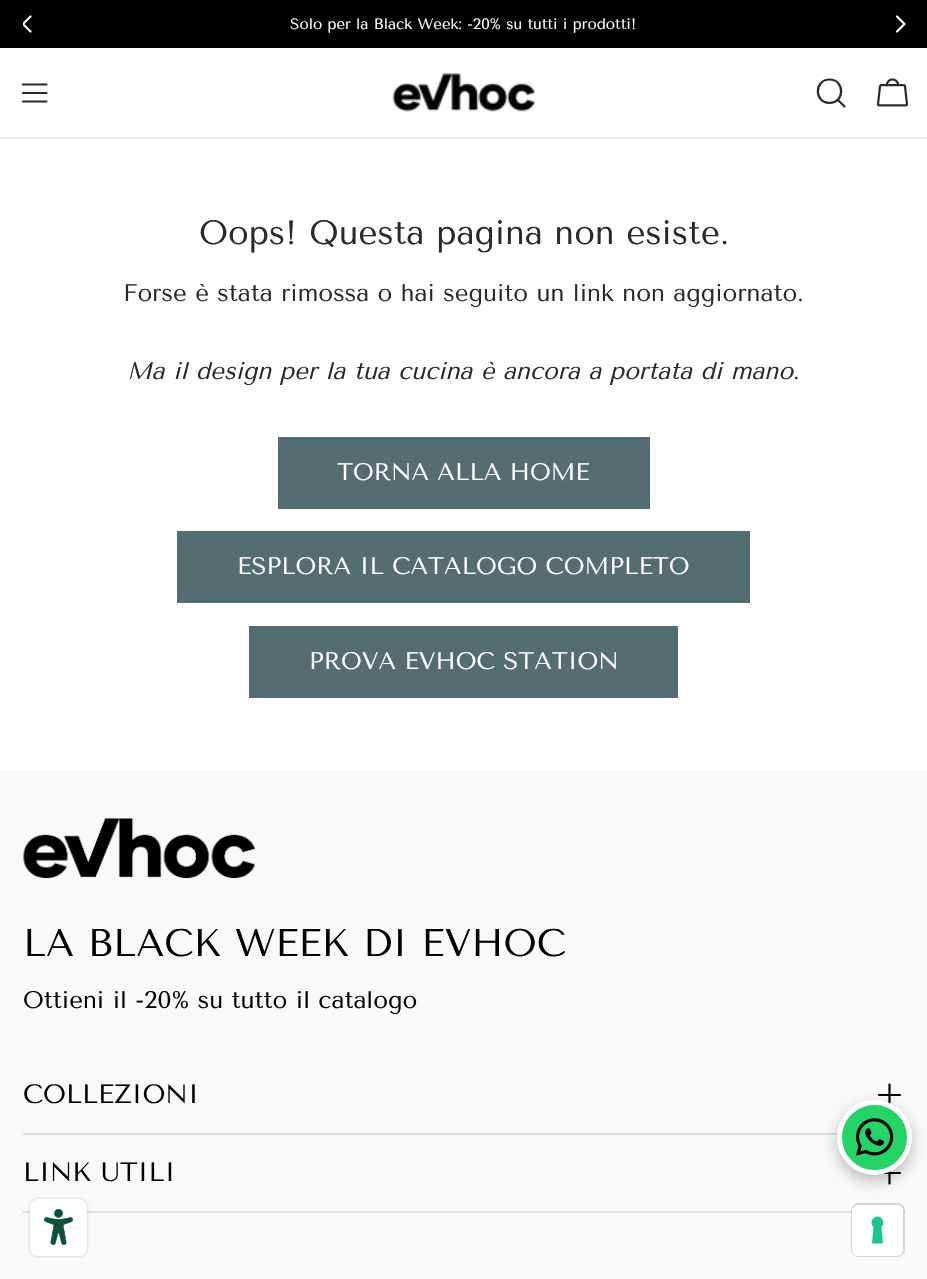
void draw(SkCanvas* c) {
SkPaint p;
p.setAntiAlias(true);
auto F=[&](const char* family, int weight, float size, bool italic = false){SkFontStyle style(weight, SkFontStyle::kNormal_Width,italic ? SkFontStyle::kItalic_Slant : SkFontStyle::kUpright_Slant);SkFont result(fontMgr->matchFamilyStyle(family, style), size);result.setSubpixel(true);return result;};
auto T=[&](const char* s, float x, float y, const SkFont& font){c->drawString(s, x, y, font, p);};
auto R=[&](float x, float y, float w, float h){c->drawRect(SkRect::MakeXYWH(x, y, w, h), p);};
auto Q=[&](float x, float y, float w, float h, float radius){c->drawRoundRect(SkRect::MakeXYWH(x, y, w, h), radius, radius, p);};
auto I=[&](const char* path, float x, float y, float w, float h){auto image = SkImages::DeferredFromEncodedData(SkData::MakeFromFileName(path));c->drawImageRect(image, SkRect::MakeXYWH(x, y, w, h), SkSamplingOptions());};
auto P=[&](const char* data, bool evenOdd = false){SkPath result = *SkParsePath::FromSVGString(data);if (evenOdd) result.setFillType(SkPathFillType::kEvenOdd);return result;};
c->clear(0xffffffff);
p.setColor(0xff000000);
R(0,0,927,48);
c->save();
c->clipRect(SkRect::MakeXYWH(23,12,16,24));
p.setStroke(true);
p.setStrokeWidth(2.2);
p.setStrokeCap(SkPaint::kRound_Cap);
p.setStrokeJoin(SkPaint::kRound_Join);
p.setColor(0xffffffff);
c->drawPath(P("M30.5 31.5l-7.5-7.5l7.5-7.5"),p);
c->restore();
c->drawPath(P("M897 16.5l7.5 7.5l-7.5 7.5"),p);
auto f1 = F("Tenor Sans",400,15);
p.setStroke(false);
T("Solo per la Black Week: -20% su tutti i prodotti!",290,29,f1);
p.setColor(0xffededed);
R(0,137,927,2);
p.setStroke(true);
p.setColor(0xff292929);
c->drawPath(P("M23 93h23.5m-23.5-8.5h23.5m-23.5 17h23.5"),p);
I("1.png",392,73,144,39);
c->drawPath(P("M829.5 103c15.5 0 15.5-23.5 0-23.5c-15.5 0-15.5 23.5 0 23.5zm8-3.5l7 7"),p);
I("2.png",876,78,33,29);
auto f2 = F("Tenor Sans",400,33.6);
p.setStroke(false);
T("Oops! Questa pagina non esiste.",199,244,f2);
auto f3 = F("Tenor Sans",400,24);
T("Forse è stata rimossa o hai seguito un link non aggiornato.",123,301,f3);
auto f4 = F("Tenor Sans",400,24,true);
T("Ma il design per la tua cucina è ancora a portata di mano",127,379,f4);
T(".",793,379,f3);
p.setColor(0xff536d70);
R(278,437,372,72);
p.setColor(0xffffffff);
T("TORNA ALLA HOME",337,480,f3);
p.setColor(0xff536d70);
R(177,531,573,72);
p.setColor(0xffffffff);
T("ESPLORA IL CATALOGO COMPLETO",237,574,f3);
p.setColor(0xff536d70);
R(249,626,429,72);
p.setColor(0xffffffff);
T("PROVA EVHOC STATION",309,669,f3);
p.setColor(0xfff9f9f9);
R(0,770,927,509);
I("3.png",23,818,233,61);
auto f5 = F("Tenor Sans",400,38.4);
p.setColor(0xff000000);
T("LA BLACK WEEK DI EVHOC",23,956,f5);
T("Ottieni il -20% su tutto il catalogo",23,1008,f3);
auto f6 = F("Tenor Sans",400,26.5);
T("COLLEZIONI",23,1103,f6);
p.setStroke(true);
c->drawPath(P("M879 1095h21m-10.5-10.5v21"),p);
p.setStroke(false);
p.setColor(0xffe0e0e0);
R(23,1133,815,2);
p.setColor(0xff000000);
T("LINK UTILI",23,1181,f6);
p.setStroke(true);
c->drawPath(P("M879 1173h21m-10.5-10.5v21"),p);
p.setStroke(false);
p.setColor(0xffe0e0e0);
R(23,1211,882,2);
p.setColor(0x40000000);
p.setMaskFilter(SkMaskFilter::MakeBlur(kNormal_SkBlurStyle, 7.5));
c->drawRoundRect(SkRect::MakeXYWH(837,1106,75,75),37.5,37.5,p);
p.setMaskFilter(nullptr);
p.setColor(0xff25d366);
c->drawCircle(874.5,1137.5,35,p);
p.setStroke(true);
p.setStrokeWidth(5);
p.setStrokeCap(SkPaint::kButt_Cap);
p.setStrokeJoin(SkPaint::kMiter_Join);
p.setColor(0xffffffff);
c->drawCircle(874.5,1137.5,35,p);
I("4.png",855,1118,39,38);
p.setStroke(false);
p.setColor(0x33000000);
p.setMaskFilter(SkMaskFilter::MakeBlur(kNormal_SkBlurStyle, 1.5));
c->drawRoundRect(SkRect::MakeXYWH(30,1199,57,57),8,8,p);
p.setMaskFilter(nullptr);
p.setColor(0xffffffff);
Q(30,1199,57,57,8);
I("5.png",44,1209,29,36);
p.setStroke(true);
p.setStrokeWidth(2);
p.setColor(0x26000000);
c->drawRoundRect(SkRect::MakeXYWH(852,1204,52,52),7,7,p);
p.setStroke(false);
p.setColor(0xffffffff);
Q(852,1205,51,51,6);
p.setColor(0xff1cc691);
c->drawPath(P("M877.5 1216.5c5.5 0 8 7 4 10.5l1.5 16.5h-11l1.5-16.5c-4-3.5-1.5-10.5 4-10.5z",true),p);
}
